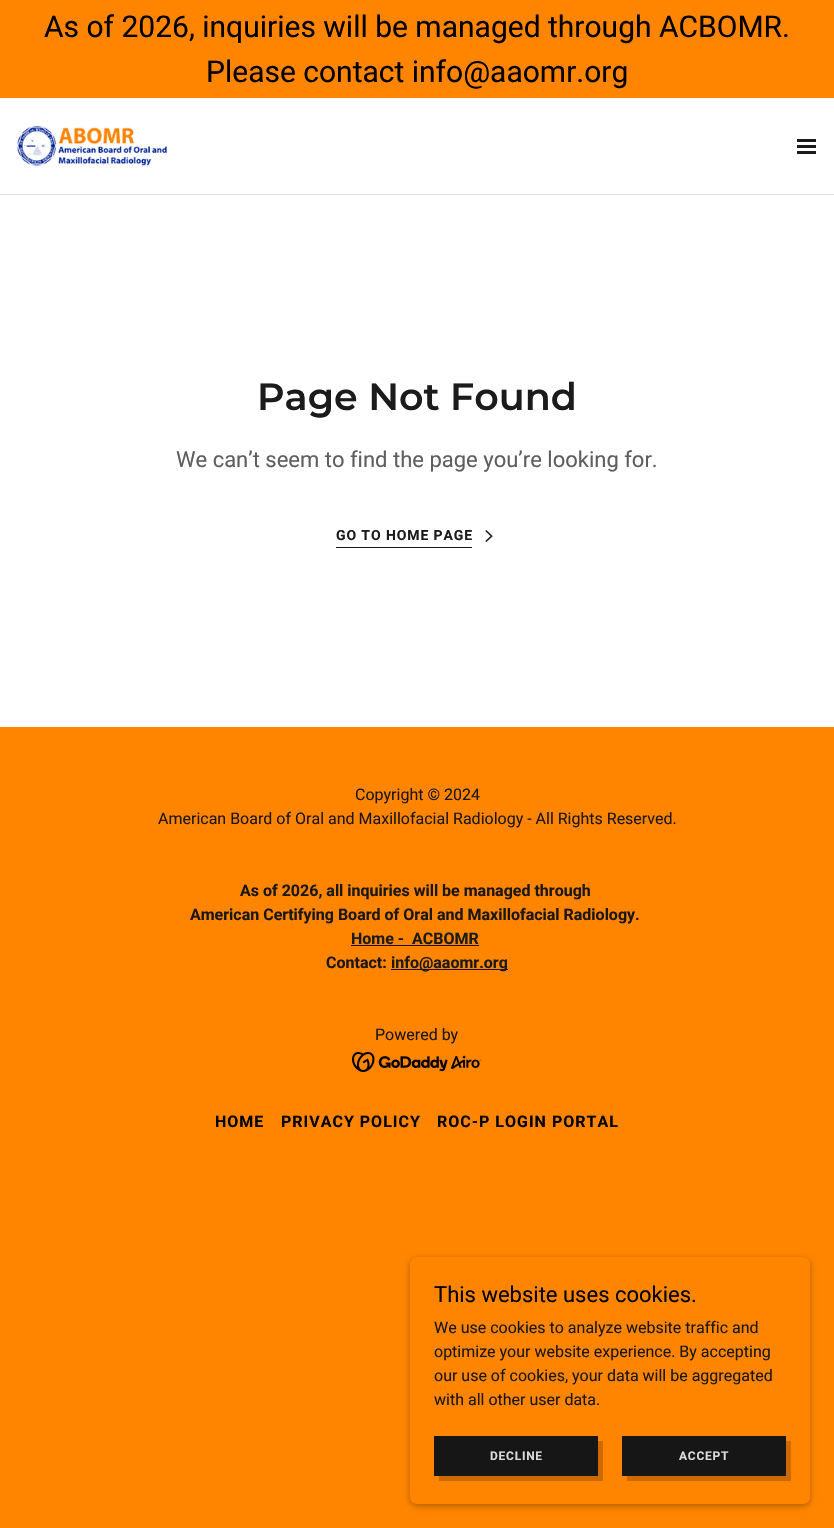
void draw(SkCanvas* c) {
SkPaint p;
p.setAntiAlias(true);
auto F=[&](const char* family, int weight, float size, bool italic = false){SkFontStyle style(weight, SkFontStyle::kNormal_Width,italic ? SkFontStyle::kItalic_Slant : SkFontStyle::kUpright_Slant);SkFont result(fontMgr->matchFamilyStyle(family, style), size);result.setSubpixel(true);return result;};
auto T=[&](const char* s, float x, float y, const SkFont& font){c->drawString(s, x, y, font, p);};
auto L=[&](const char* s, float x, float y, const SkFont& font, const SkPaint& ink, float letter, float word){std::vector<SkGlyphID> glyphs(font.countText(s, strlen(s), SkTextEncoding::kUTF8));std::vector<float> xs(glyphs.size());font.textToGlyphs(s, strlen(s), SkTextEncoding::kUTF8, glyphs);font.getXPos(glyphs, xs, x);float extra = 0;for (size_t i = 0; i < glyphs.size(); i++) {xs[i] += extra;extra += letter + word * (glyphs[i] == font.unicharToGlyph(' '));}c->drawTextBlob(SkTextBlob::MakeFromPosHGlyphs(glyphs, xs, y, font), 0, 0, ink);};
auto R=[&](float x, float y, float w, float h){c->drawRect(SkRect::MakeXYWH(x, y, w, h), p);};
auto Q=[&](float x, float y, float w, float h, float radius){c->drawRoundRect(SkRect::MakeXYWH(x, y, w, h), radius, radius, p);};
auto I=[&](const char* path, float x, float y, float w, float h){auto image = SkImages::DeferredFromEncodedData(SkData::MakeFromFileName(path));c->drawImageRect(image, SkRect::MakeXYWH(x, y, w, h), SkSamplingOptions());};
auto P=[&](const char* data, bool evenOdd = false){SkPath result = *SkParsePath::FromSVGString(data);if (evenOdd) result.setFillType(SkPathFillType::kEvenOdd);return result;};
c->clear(0xffff8500);
p.setColor(0xffffffff);
R(0,98,834,96);
auto f1 = F("Roboto",400,30);
p.setColor(0xff000000);
T("As of 2026, inquiries will be managed through ACBOMR.",44,37,f1);
T("Please contact info@aaomr.org",206,82,f1);
I("1.png",16,126,152,40);
p.setColor(0xff1b1b1b);
R(797,139,19,3);
R(797,145,19,3);
R(797,151,19,3);
p.setColor(0xffe2e2e2);
R(0,194,834,1);
p.setColor(0xffffffff);
R(0,195,834,532);
auto f2 = F("Montserrat",600,38);
p.setColor(0xff1b1b1b);
T("Page Not Found",257,410,f2);
auto f3 = F("Roboto",400,22);
p.setColor(0xff5e5e5e);
T("We can’t seem to find the page you’re looking for.",176,467,f3);
p.setColor(0xff1b1b1b);
R(336,547,136,1);
auto f4 = F("Roboto",700,14);
L("GO TO HOME PAGE",336,540,f4,p,.9,0);
I("2.png",485,530,8,12);
auto f5 = F("Roboto",400,16);
p.setColor(0xff1b1715);
T("Copyright © 2024",355,800,f5);
T("American Board of Oral and Maxillofacial Radiology - All Rights Reserved.",158,824,f5);
auto f6 = F("Roboto",700,16);
T("As of 2026, all inquiries will be managed through",240,896,f6);
T("American Certifying Board of Oral and Maxillofacial Radiology.",190,920,f6);
p.setColor(0xff1b1b1b);
T("Home -  ACBOMR",351,944,f6);
p.setColor(0xff161616);
R(351,945,128,1);
p.setColor(0xff1b1715);
T("Contact:",326,968,f6);
p.setColor(0xff161616);
R(391,969,117,1);
p.setColor(0xff1b1b1b);
T("info@aaomr.org",391,968,f6);
p.setColor(0xff1b1715);
T("Powered by",375,1040,f5);
I("3.png",352,1052,130,20);
p.setColor(0xff000000);
L("HOME",215,1127,f6,p,1,0);
L("PRIVACY POLICY",281,1127,f6,p,1,0);
L("ROC-P LOGIN PORTAL",437,1127,f6,p,1,0);
p.setColor(0x4d000000);
p.setMaskFilter(SkMaskFilter::MakeBlur(kNormal_SkBlurStyle, 3));
c->drawRoundRect(SkRect::MakeXYWH(410,1259,400,247),7,7,p);
p.setMaskFilter(nullptr);
p.setColor(0xffff8500);
Q(410,1257,400,247,7);
p.setColor(0xff000000);
T("This website uses cookies.",434,1302,f3);
p.setColor(0xff1b1715);
T("We use cookies to analyze website traffic and",434,1333,f5);
T("optimize your website experience. By accepting",434,1357,f5);
T("our use of cookies, your data will be aggregated",434,1381,f5);
T("with all other user data.",434,1405,f5);
p.setColor(0xff161616);
R(434,1436,164,40);
p.setColor(0xffcc6a00);
c->drawPath(P("M439 1476v5h164v-40h-5v35z"),p);
auto f7 = F("Roboto",700,12);
p.setColor(0xffdbdbdb);
L("DECLINE",490,1460,f7,p,.75,0);
p.setColor(0xff161616);
R(622,1436,164,40);
p.setColor(0xffcc6a00);
c->drawPath(P("M627 1476v5h164v-40h-5v35z"),p);
p.setColor(0xffdbdbdb);
L("ACCEPT",679,1460,f7,p,.75,0);
}
